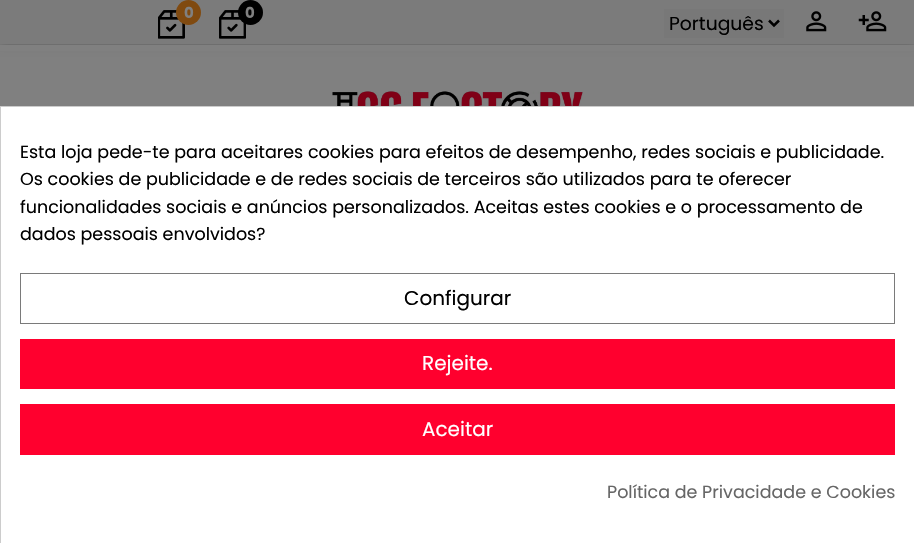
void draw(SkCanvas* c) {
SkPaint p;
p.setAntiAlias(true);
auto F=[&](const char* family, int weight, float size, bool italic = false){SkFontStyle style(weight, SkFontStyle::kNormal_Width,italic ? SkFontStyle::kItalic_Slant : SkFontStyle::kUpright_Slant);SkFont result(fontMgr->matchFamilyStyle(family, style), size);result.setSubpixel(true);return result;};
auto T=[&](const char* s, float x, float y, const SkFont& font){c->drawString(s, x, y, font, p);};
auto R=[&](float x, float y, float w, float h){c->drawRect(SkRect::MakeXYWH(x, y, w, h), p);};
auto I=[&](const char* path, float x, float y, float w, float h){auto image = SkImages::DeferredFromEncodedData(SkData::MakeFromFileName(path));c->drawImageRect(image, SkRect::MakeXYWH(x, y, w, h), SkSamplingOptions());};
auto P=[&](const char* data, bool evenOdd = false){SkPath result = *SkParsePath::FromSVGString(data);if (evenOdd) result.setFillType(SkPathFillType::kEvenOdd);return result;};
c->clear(0xff808080);
p.setColor(0x4d000000);
p.setMaskFilter(SkMaskFilter::MakeBlur(kNormal_SkBlurStyle, 4.5));
c->drawRect(SkRect::MakeXYWH(0,0,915,44),p);
p.setMaskFilter(nullptr);
p.setColor(0xff808080);
R(0,45,914,6);
p.setColor(0xff7b7b7b);
R(0,0,914,44);
I("1.png",158,10,27,29);
p.setColor(0xff804a10);
c->drawCircle(188.5,12.5,12.5,p);
auto f1 = F("Poppins",700,15);
p.setColor(0xff808080);
T("0",184,18,f1);
I("2.png",219,10,27,29);
p.setColor(0xff000000);
c->drawCircle(250.5,12.5,12.5,p);
p.setColor(0xff808080);
T("0",245,18,f1);
I("3.png",332,91,251,15);
p.setColor(0xff787878);
R(664,9,120,29);
p.setStroke(true);
p.setStrokeWidth(2.5);
p.setColor(0xff000000);
c->drawPath(P("M769 20.5l5 5l5-5"),p);
auto f2 = F("Poppins",400,18.75);
p.setStroke(false);
T("Português",669,30,f2);
I("4.png",806,11,21,21);
I("5.png",858,11,29,21);
p.setColor(0xffffffff);
c->drawRect(SkRect::MakeXYWH(.5,106.5,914,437),p);
p.setStroke(true);
p.setStrokeWidth(1);
p.setColor(0xffcccccc);
c->drawRect(SkRect::MakeXYWH(.5,106.5,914,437),p);
auto f3 = F("Poppins",400,17.5);
p.setStroke(false);
p.setColor(0xff000000);
T("Esta loja pede-te para aceitares cookies para efeitos de desempenho, redes sociais e publicidade.",20,158,f3);
T("Os cookies de publicidade e de redes sociais de terceiros são utilizados para te oferecer",20,185,f3);
T("funcionalidades sociais e anúncios personalizados. Aceitas estes cookies e o processamento de",20,213,f3);
T("dados pessoais envolvidos?",20,240,f3);
p.setStroke(true);
p.setColor(0xff7a7a7a);
c->drawRect(SkRect::MakeXYWH(20.5,273.5,874,50),p);
auto f4 = F("Poppins",400,20);
p.setStroke(false);
p.setColor(0xff000000);
T("Configurar",404,305,f4);
p.setColor(0xffff002e);
R(20,339,875,50);
p.setColor(0xffffffff);
T("Rejeite.",422,370,f4);
p.setColor(0xffff002e);
R(20,404,875,51);
p.setColor(0xffffffff);
T("Aceitar",422,436,f4);
p.setColor(0xff666666);
T("Política de Privacidade e Cookies",607,498,f3);
}
